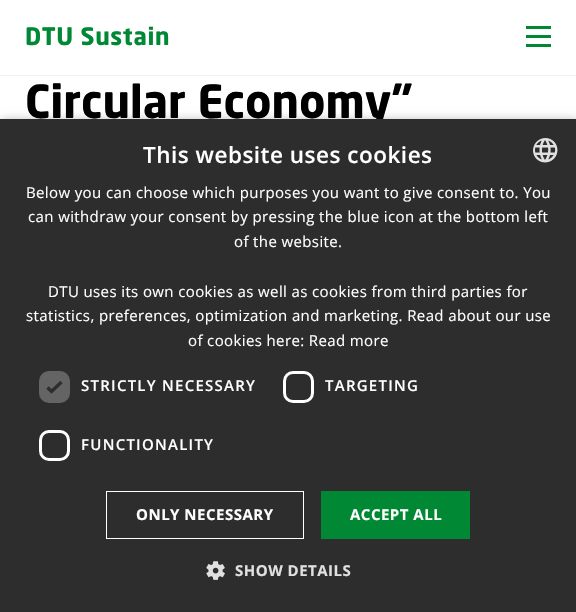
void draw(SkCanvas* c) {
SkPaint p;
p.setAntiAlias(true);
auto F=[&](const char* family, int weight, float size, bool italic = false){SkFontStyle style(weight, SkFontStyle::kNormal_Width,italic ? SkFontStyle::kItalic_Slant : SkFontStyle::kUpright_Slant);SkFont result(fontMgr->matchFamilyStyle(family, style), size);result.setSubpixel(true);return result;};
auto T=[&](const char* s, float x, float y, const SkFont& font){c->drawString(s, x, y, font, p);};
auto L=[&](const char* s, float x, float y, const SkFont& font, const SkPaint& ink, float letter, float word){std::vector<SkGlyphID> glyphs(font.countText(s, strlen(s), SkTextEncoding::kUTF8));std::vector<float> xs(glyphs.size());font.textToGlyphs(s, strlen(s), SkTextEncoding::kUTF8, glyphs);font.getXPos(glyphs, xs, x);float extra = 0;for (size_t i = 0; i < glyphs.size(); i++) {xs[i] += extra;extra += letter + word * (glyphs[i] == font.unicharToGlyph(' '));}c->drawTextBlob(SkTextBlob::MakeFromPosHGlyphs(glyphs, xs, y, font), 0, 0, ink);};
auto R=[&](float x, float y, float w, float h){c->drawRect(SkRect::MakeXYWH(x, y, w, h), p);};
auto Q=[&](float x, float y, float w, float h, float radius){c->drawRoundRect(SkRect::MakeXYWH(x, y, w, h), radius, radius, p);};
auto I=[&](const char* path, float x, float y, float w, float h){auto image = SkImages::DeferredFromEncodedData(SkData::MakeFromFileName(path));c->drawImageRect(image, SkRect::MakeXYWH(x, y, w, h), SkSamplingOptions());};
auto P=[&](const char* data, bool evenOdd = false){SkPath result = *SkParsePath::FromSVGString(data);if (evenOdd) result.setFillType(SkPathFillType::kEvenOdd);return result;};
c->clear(0xffffffff);
p.setColor(0xfff1f1f1);
R(0,75,576,1);
auto f1 = F("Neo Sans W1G",700,23.75);
p.setColor(0xff008835);
L("DTU Sustain",25,45,f1,p,.6,0);
R(526,26,25,3);
R(526,35,25,3);
R(526,44,25,3);
auto f2 = F("Neo Sans W1G",700,45);
p.setColor(0xff000000);
T("Circular Economy”",25,118,f2);
p.setColor(0x59000000);
p.setMaskFilter(SkMaskFilter::MakeBlur(kNormal_SkBlurStyle, 5));
c->drawRect(SkRect::MakeXYWH(1,121,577,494),p);
p.setMaskFilter(nullptr);
p.setColor(0xff2d2d2d);
R(0,119,576,493);
auto f3 = F("Open Sans",600,22.5);
p.setColor(0xffffffff);
L("This website uses cookies",143,163,f3,p,.5,0);
I("1.png",533,138,25,25);
auto f4 = F("Open Sans",400,15);
L("Below you can choose which purposes you want to give consent to. You",26,198,f4,p,.38,0);
L("can withdraw your consent by pressing the blue icon at the bottom left",28,222,f4,p,.38,0);
L("of the website.",234,247,f4,p,.38,0);
L("DTU uses its own cookies as well as cookies from third parties for",48,297,f4,p,.38,0);
L("statistics, preferences, optimization and marketing. Read about our use",26,321,f4,p,.38,0);
L("of cookies here: Read more",188,346,f4,p,.38,0);
p.setColor(0xff646464);
Q(39,371,31,32,10);
p.setStroke(true);
p.setStrokeWidth(3.3);
p.setColor(0xff2d2d2d);
c->drawPath(P("M47.5 387.5l4 4l10-9.5"),p);
auto f5 = F("Open Sans",600,15);
p.setStroke(false);
p.setColor(0xffffffff);
L("STRICTLY NECESSARY",81,391,f5,p,1.25,0);
p.setStroke(true);
p.setStrokeWidth(3);
c->drawRoundRect(SkRect::MakeXYWH(284.5,372.5,28,29),8.5,8.5,p);
p.setStroke(false);
L("TARGETING",325,391,f5,p,1.25,0);
p.setStroke(true);
c->drawRoundRect(SkRect::MakeXYWH(40.5,431.5,28,28),8.5,8.5,p);
p.setStroke(false);
L("FUNCTIONALITY",81,450,f5,p,1.25,0);
p.setStroke(true);
p.setStrokeWidth(1);
c->drawRect(SkRect::MakeXYWH(106.5,491.5,197,47),p);
auto f6 = F("Open Sans",700,15);
p.setStroke(false);
L("ONLY NECESSARY",136,520,f6,p,.5,0);
p.setColor(0xff008835);
R(321,491,149,48);
p.setColor(0xffffffff);
L("ACCEPT ALL",350,520,f6,p,.5,0);
I("2.png",206,561,19,19);
p.setColor(0xffe0e0e0);
L("SHOW DETAILS",235,576,f6,p,.5,0);
}
